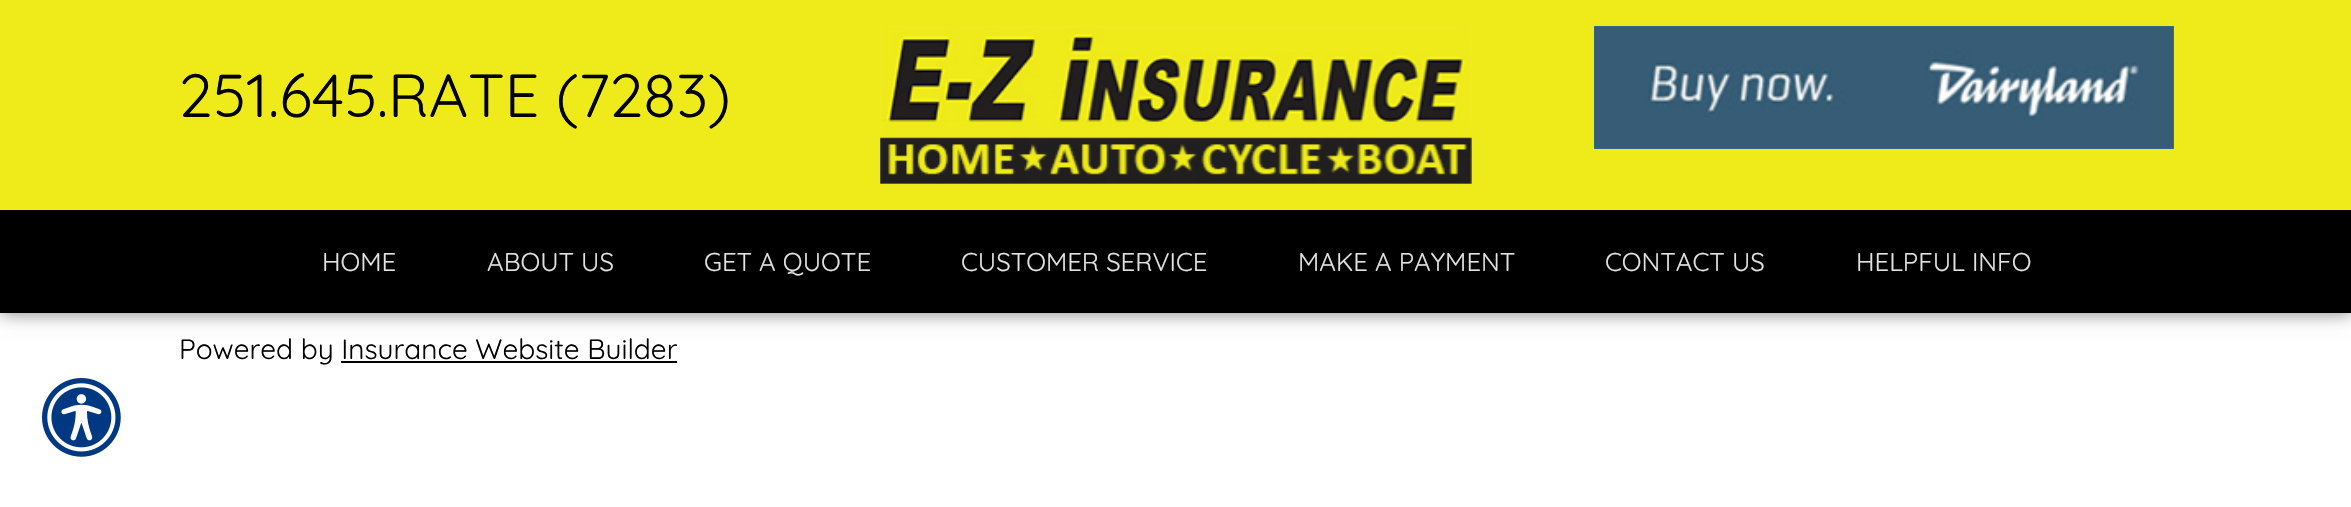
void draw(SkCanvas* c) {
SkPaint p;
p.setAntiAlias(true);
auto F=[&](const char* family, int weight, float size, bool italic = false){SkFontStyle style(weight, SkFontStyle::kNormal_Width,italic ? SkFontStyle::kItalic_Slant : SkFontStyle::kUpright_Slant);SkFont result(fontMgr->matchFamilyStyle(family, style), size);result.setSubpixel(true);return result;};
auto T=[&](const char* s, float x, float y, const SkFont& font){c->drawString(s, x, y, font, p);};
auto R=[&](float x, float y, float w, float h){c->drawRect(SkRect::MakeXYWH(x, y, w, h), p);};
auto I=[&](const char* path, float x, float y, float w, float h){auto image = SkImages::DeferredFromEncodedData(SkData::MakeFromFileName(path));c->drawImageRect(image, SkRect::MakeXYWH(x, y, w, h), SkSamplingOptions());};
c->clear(0xffffffff);
p.setColor(0x80000000);
p.setMaskFilter(SkMaskFilter::MakeBlur(kNormal_SkBlurStyle, 9));
c->drawRect(SkRect::MakeXYWH(0,0,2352,313),p);
p.setMaskFilter(nullptr);
p.setColor(0xffefeb1a);
R(0,0,2351,210);
auto f1 = F("Quicksand",300,60.75);
p.setColor(0xff000000);
T("251.645.RATE (7283)",179,117,f1);
I("1.png",880,26,592,158);
p.setColor(0xff1c87c9);
R(1594,26,580,123);
I("2.png",1594,26,580,123);
p.setColor(0xff000000);
R(0,210,2351,103);
auto f2 = F("Quicksand",300,25.75);
p.setColor(0xffe2e2e2);
T("HOME",322,271,f2);
T("ABOUT US",487,271,f2);
T("GET A QUOTE",704,271,f2);
T("CUSTOMER SERVICE",961,271,f2);
T("MAKE A PAYMENT",1298,271,f2);
T("CONTACT US",1605,271,f2);
T("HELPFUL INFO",1856,271,f2);
auto f3 = F("Quicksand",300,28);
p.setColor(0xff000000);
T("Powered by Insurance Website Builder",179,359,f3);
R(341,361,336,2);
I("3.png",42,378,79,79);
}
